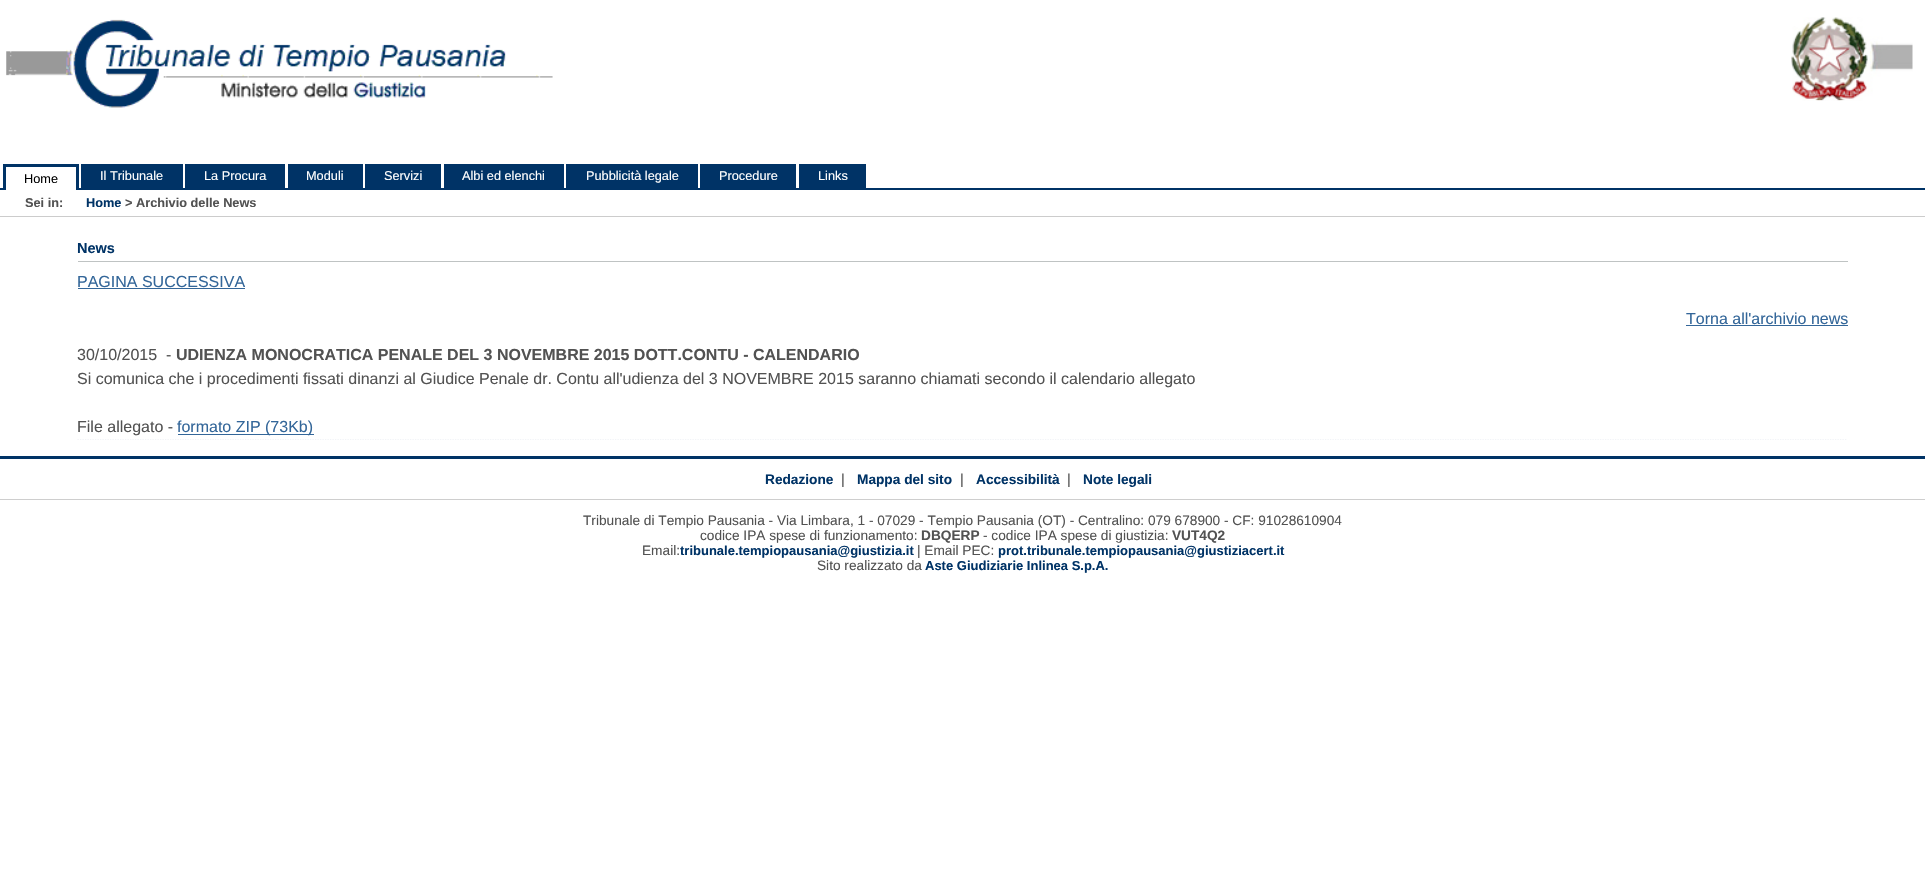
void draw(SkCanvas* c) {
SkPaint p;
p.setAntiAlias(true);
auto F=[&](const char* family, int weight, float size, bool italic = false){SkFontStyle style(weight, SkFontStyle::kNormal_Width,italic ? SkFontStyle::kItalic_Slant : SkFontStyle::kUpright_Slant);SkFont result(fontMgr->matchFamilyStyle(family, style), size);result.setSubpixel(true);return result;};
auto T=[&](const char* s, float x, float y, const SkFont& font){c->drawString(s, x, y, font, p);};
auto R=[&](float x, float y, float w, float h){c->drawRect(SkRect::MakeXYWH(x, y, w, h), p);};
auto I=[&](const char* path, float x, float y, float w, float h){auto image = SkImages::DeferredFromEncodedData(SkData::MakeFromFileName(path));c->drawImageRect(image, SkRect::MakeXYWH(x, y, w, h), SkSamplingOptions());};
auto P=[&](const char* data, bool evenOdd = false){SkPath result = *SkParsePath::FromSVGString(data);if (evenOdd) result.setFillType(SkPathFillType::kEvenOdd);return result;};
c->clear(0xffffffff);
p.setColor(0xff003366);
R(0,188,1925,2);
I("1.png",6,19,547,89);
I("2.png",1791,17,122,84);
p.setColor(0xffffffff);
R(6,188,70,2);
p.setColor(0xff003366);
R(3,164,76,3);
R(76,164,3,26);
R(3,164,3,26);
auto f1 = F("Liberation Sans",400,12.75);
p.setColor(0xff000000);
T("Home",24,183,f1);
p.setColor(0xff003366);
R(81,164,102,24);
p.setColor(0xffffffff);
T("Il Tribunale",100,180,f1);
p.setColor(0xff003366);
R(185,164,100,24);
p.setColor(0xffffffff);
T("La Procura",204,180,f1);
p.setColor(0xff003366);
R(288,164,75,24);
p.setColor(0xffffffff);
T("Moduli",306,180,f1);
p.setColor(0xff003366);
R(365,164,76,24);
p.setColor(0xffffffff);
T("Servizi",384,180,f1);
p.setColor(0xff003366);
R(444,164,120,24);
p.setColor(0xffffffff);
T("Albi ed elenchi",462,180,f1);
p.setColor(0xff003366);
R(566,164,132,24);
p.setColor(0xffffffff);
T("Pubblicità legale",586,180,f1);
p.setColor(0xff003366);
R(700,164,96,24);
p.setColor(0xffffffff);
T("Procedure",719,180,f1);
p.setColor(0xff003366);
R(799,164,67,24);
p.setColor(0xffffffff);
T("Links",818,180,f1);
p.setColor(0xffcccccc);
R(0,216,1925,1);
auto f2 = F("Liberation Sans",700,12.75);
p.setColor(0xff525252);
T("Sei in:",25,207,f2);
p.setColor(0xff003366);
T("Home",86,207,f2);
p.setColor(0xff525252);
T("> Archivio delle News",125,207,f2);
p.setColor(0xffbfc3c3);
R(78,261,1770,1);
auto f3 = F("Liberation Sans",700,14.5);
p.setColor(0xff003366);
T("News",77,253,f3);
auto f4 = F("Liberation Sans",400,16);
p.setColor(0xff336699);
T("PAGINA SUCCESSIVA",77,287,f4);
R(78,288,167,1);
T("Torna all'archivio news",1686,324,f4);
R(1686,325,162,1);
p.setStroke(true);
p.setStrokeWidth(1.2);
p.setColor(0xfff2f4f7);
p.setPathEffect(SkDashPathEffect::Make({{1.25f,1.25f}}, 0));
c->drawPath(P("M77.5 439.5h1770"),p);
p.setPathEffect(nullptr);
p.setStroke(false);
p.setColor(0xff525252);
T("30/10/2015  -",77,360,f4);
auto f5 = F("Liberation Sans",700,16);
T("UDIENZA MONOCRATICA PENALE DEL 3 NOVEMBRE 2015 DOTT.CONTU - CALENDARIO",176,360,f5);
T("Si comunica che i procedimenti fissati dinanzi al Giudice Penale dr. Contu all'udienza del 3 NOVEMBRE 2015 saranno chiamati secondo il calendario allegato",77,384,f4);
T("File allegato -",77,432,f4);
p.setColor(0xff336699);
R(178,434,136,1);
T("formato ZIP (73Kb)",177,432,f4);
p.setColor(0xff003366);
R(0,456,1925,3);
auto f6 = F("Liberation Sans",700,13.68);
T("Redazione",765,484,f6);
auto f7 = F("Liberation Sans",400,14.5);
p.setColor(0xff525252);
T("|",841,484,f7);
p.setColor(0xff003366);
T("Mappa del sito",857,484,f6);
p.setColor(0xff525252);
T("|",960,484,f7);
p.setColor(0xff003366);
T("Accessibilità",976,484,f6);
p.setColor(0xff525252);
T("|",1067,484,f7);
p.setColor(0xff003366);
T("Note legali",1083,484,f6);
p.setColor(0xffcecece);
R(0,499,1925,1);
auto f8 = F("Liberation Sans",400,13.68);
p.setColor(0xff525252);
T("Tribunale di Tempio Pausania - Via Limbara, 1 - 07029 - Tempio Pausania (OT) - Centralino: 079 678900 - CF: 91028610904",583,525,f8);
T("codice IPA spese di funzionamento:",700,540,f8);
T("DBQERP",921,540,f6);
T("- codice IPA spese di giustizia:",983,540,f8);
T("VUT4Q2",1172,540,f6);
T("Email:",642,555,f8);
auto f9 = F("Liberation Sans",700,13);
p.setColor(0xff003366);
T("tribunale.tempiopausania@giustizia.it",680,555,f9);
p.setColor(0xff525252);
T("| Email PEC:",917,555,f8);
p.setColor(0xff003366);
T("prot.tribunale.tempiopausania@giustiziacert.it",998,555,f9);
p.setColor(0xff525252);
T("Sito realizzato da",817,570,f8);
p.setColor(0xff003366);
T("Aste Giudiziarie Inlinea S.p.A.",925,570,f9);
}
